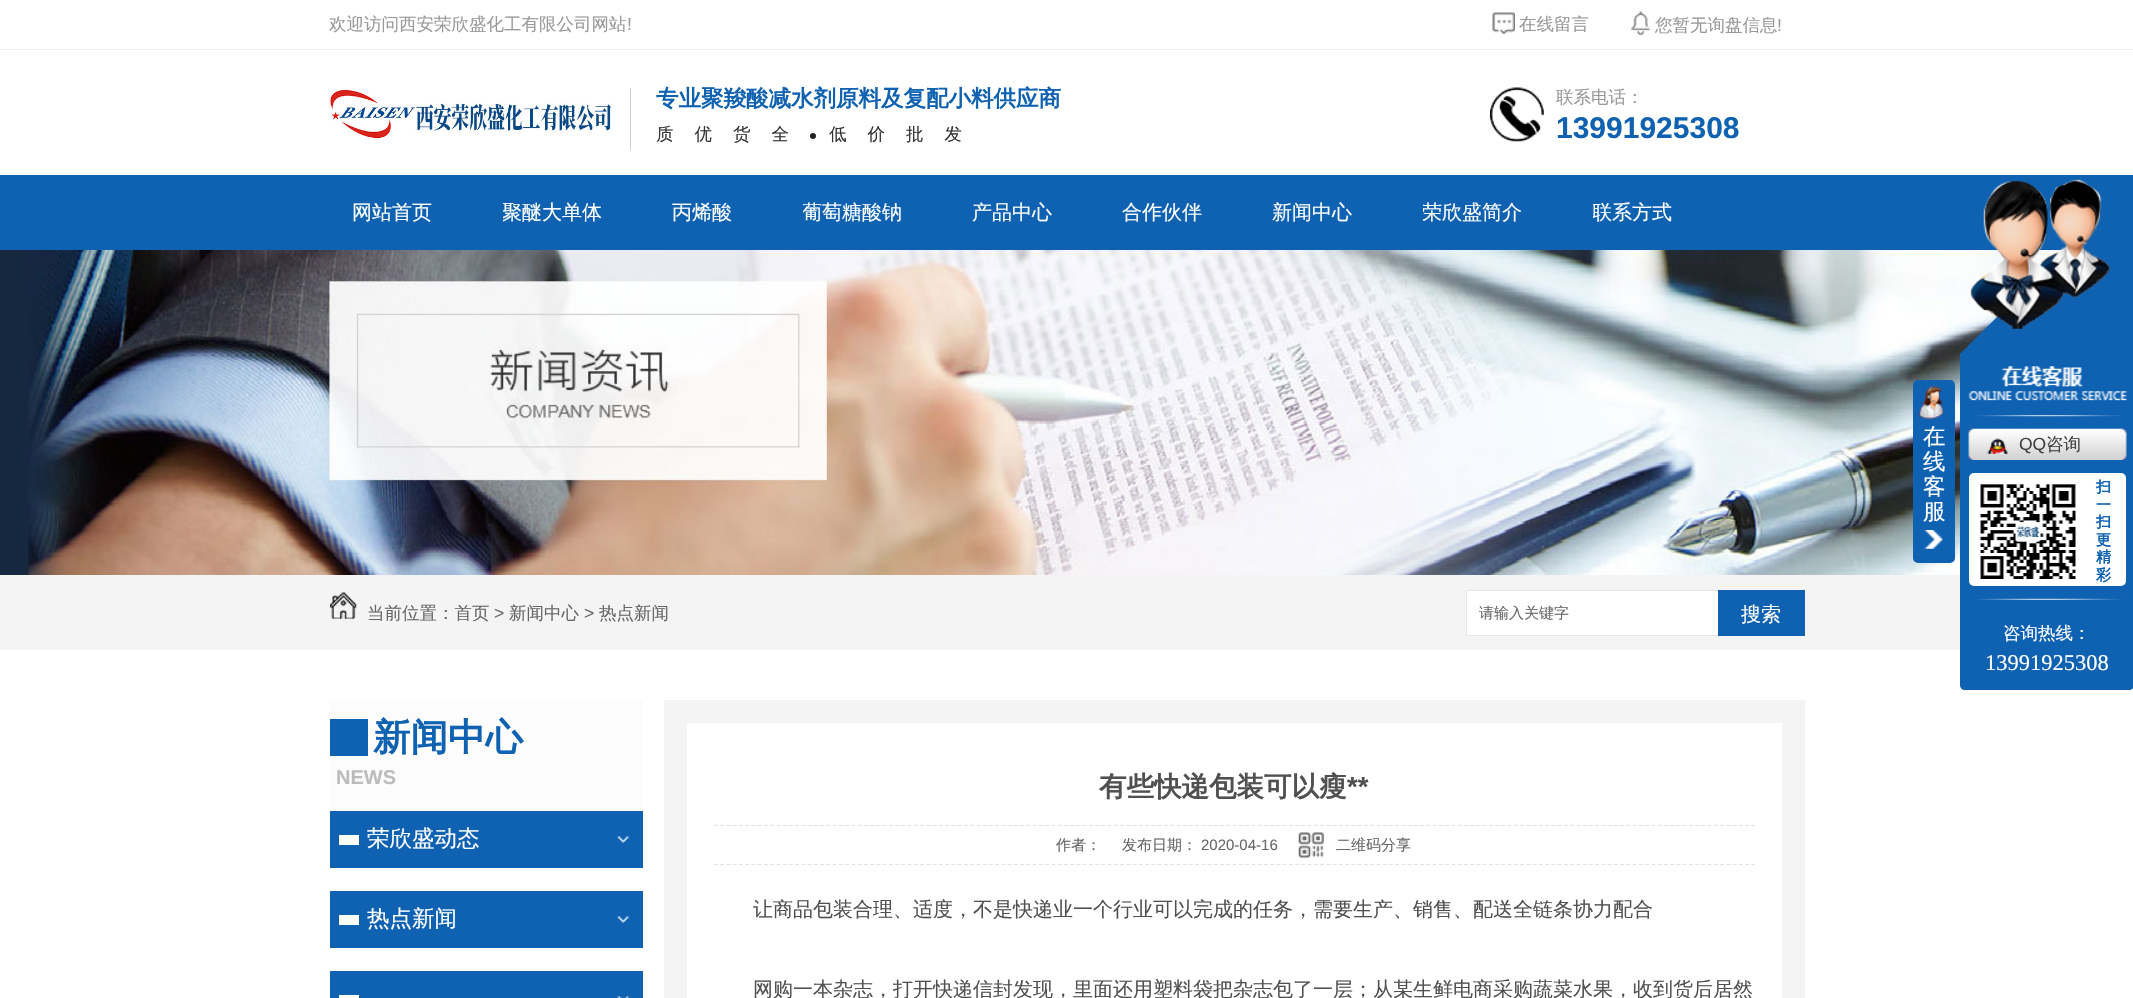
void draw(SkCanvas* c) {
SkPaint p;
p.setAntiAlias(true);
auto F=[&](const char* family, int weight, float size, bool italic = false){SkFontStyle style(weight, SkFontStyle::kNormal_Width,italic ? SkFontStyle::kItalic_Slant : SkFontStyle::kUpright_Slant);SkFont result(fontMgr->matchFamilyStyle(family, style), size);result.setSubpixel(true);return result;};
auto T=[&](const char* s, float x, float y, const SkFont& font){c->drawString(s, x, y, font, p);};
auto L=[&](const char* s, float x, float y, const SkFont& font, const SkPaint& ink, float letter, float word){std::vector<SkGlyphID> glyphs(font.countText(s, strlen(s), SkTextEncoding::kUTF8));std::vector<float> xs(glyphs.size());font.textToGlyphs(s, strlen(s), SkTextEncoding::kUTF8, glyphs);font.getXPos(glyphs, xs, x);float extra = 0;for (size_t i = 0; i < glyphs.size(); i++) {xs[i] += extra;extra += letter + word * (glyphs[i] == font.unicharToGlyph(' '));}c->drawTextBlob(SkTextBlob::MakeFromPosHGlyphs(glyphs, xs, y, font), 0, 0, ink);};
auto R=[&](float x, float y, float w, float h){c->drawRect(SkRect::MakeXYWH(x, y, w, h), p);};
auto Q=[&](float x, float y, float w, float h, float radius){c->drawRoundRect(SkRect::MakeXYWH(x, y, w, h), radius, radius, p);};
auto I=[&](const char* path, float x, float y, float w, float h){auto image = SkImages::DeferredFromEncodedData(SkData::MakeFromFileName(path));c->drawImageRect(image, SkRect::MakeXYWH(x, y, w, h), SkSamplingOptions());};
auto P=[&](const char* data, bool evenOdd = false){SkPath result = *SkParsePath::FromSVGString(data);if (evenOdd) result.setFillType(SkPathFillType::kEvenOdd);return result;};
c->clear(0xffffffff);
p.setColor(0xffeeeeee);
R(0,49,2133,1);
auto f1 = F("WenQuanYi Zen Hei",500,17.5);
p.setColor(0xff999999);
T("欢迎访问西安荣欣盛化工有限公司网站",329,30,f1);
auto f2 = F("Liberation Sans",400,17.5);
T("!",627,30,f2);
I("1.png",1492,12,23,22);
T("在线留言",1519,30,f1);
I("2.png",1631,11,19,24);
T("您暂无询盘信息",1655,31,f1);
T("!",1777,31,f2);
I("3.png",330,88,281,51);
p.setColor(0xffd2d2d2);
R(630,88,1,62);
auto f3 = F("WenQuanYi Zen Hei",700,22.5);
p.setColor(0xff0e62b1);
T("专业聚羧酸减水剂原料及复配小料供应商",656,106,f3);
p.setColor(0xff333333);
L("质优货全",656,140,f1,p,21,0);
p.setColor(0xff222222);
c->drawCircle(813,136,3,p);
p.setColor(0xff333333);
L("低价批发",829,140,f1,p,21,0);
I("4.png",1490,87,54,55);
p.setColor(0xff999999);
T("联系电话：",1556,103,f1);
auto f4 = F("Liberation Sans",700,30);
p.setColor(0xff0e62b1);
T("13991925308",1556,138,f4);
R(0,175,2133,75);
auto f5 = F("WenQuanYi Zen Hei",500,20);
p.setColor(0xffffffff);
T("网站首页",352,219,f5);
c->save();
c->clipRect(SkRect::MakeXYWH(503,175,100,75));
T("聚醚大单体",502,219,f5);
c->restore();
T("丙烯酸",672,219,f5);
c->save();
c->clipRect(SkRect::MakeXYWH(803,175,100,75));
T("葡萄糖酸钠",802,219,f5);
c->restore();
T("产品中心",972,219,f5);
T("合作伙伴",1122,219,f5);
T("新闻中心",1272,219,f5);
c->save();
c->clipRect(SkRect::MakeXYWH(1423,175,100,75));
T("荣欣盛简介",1422,219,f5);
c->restore();
c->save();
c->clipRect(SkRect::MakeXYWH(1593,175,80,75));
T("联系方式",1592,219,f5);
c->restore();
I("5.png",0,250,2063,325);
p.setColor(0xfff4f4f4);
R(0,575,1960,75);
I("6.png",330,592,27,27);
p.setColor(0xff666666);
T("当前位置：首页",367,619,f1);
T(">",494,619,f2);
T("新闻中心",509,619,f1);
T(">",584,619,f2);
T("热点新闻",599,619,f1);
p.setColor(0xffffffff);
c->drawRect(SkRect::MakeXYWH(1466.5,590.5,252,45),p);
p.setStroke(true);
p.setStrokeWidth(1);
p.setColor(0xffe5e5e5);
c->drawRect(SkRect::MakeXYWH(1466.5,590.5,252,45),p);
auto f6 = F("WenQuanYi Zen Hei",500,15);
p.setStroke(false);
p.setColor(0xff666666);
T("请输入关键字",1479,618,f6);
p.setColor(0xff0f62b2);
R(1718,590,87,46);
p.setColor(0xffffffff);
T("搜索",1741,621,f5);
p.setColor(0xff0f62b2);
Q(1913,380,42,183,5);
I("7.png",1924,530,19,19);
I("8.png",1916,386,28,33);
auto f7 = F("WenQuanYi Zen Hei",500,22.5);
p.setColor(0xffffffff);
T("在",1923,444,f7);
T("线",1923,469,f7);
T("客",1923,494,f7);
T("服",1923,519,f7);
p.setColor(0xff0f62b2);
c->drawPath(P("M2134 180l-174 174h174z"),p);
I("9.png",1970,179,141,150);
c->drawPath(P("M1960 354h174v331c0 3-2 5-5 5h-164c-3 0-5-2-5-5z"),p);
I("10.png",1968,366,159,35);
I("11.png",1976,415,146,2);
I("12.png",1968,428,159,32);
I("13.png",1987,438,21,16);
p.setColor(0xff404040);
T("QQ",2019,450,f2);
T("咨询",2046,450,f1);
p.setColor(0xffffffff);
Q(1969,473,157,113,5);
I("14.png",1980,484,96,95);
auto f8 = F("WenQuanYi Zen Hei",700,15);
p.setColor(0xff0e62b1);
T("扫",2096,492,f8);
T("一",2096,510,f8);
T("扫",2096,527,f8);
T("更",2096,545,f8);
T("精",2096,562,f8);
T("彩",2096,580,f8);
I("15.png",1976,598,146,2);
p.setColor(0xffffffff);
T("咨询热线：",2003,639,f1);
auto f9 = F("Liberation Serif",400,22.5);
T("13991925308",1985,670,f9);
p.setColor(0xfffcfcfc);
R(330,700,313,111);
p.setColor(0xff0f62b2);
R(330,719,38,37);
auto f10 = F("WenQuanYi Zen Hei",700,37.5);
p.setColor(0xff0e62b1);
T("新闻中心",373,750,f10);
auto f11 = F("Liberation Sans",700,20);
p.setColor(0xffbcbcbc);
T("NEWS",336,784,f11);
p.setColor(0xff0f62b2);
R(330,811,313,57);
I("16.png",617,836,12,7);
p.setColor(0xffffffff);
R(339,835,20,10);
T("荣欣盛动态",367,846,f7);
p.setColor(0xff0f62b2);
R(330,891,313,57);
I("16.png",617,916,12,7);
p.setColor(0xffffffff);
R(339,915,20,10);
T("热点新闻",367,926,f7);
p.setColor(0xff0f62b2);
R(330,971,313,27);
I("17.png",617,996,12,2);
p.setColor(0xffffffff);
R(339,995,20,3);
p.setStroke(true);
p.setStrokeWidth(23);
p.setColor(0xfff4f4f4);
c->drawRect(SkRect::MakeXYWH(675.5,711.5,1118,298),p);
p.setStrokeWidth(1.2);
p.setColor(0xffe1e3df);
p.setPathEffect(SkDashPathEffect::Make({{3.75f,2.5f}}, 0));
c->drawPath(P("M714 825.5h1041"),p);
p.setPathEffect(nullptr);
auto f12 = F("WenQuanYi Zen Hei",700,27.5);
p.setStroke(false);
p.setColor(0xff505050);
T("有些快递包装可以瘦",1099,796,f12);
auto f13 = F("Liberation Sans",700,27.5);
T("**",1347,796,f13);
p.setStroke(true);
p.setColor(0xffe1e3df);
p.setPathEffect(SkDashPathEffect::Make({{3.75f,2.5f}}, 0));
c->drawPath(P("M714 864.5h1041"),p);
p.setPathEffect(nullptr);
p.setStroke(false);
p.setColor(0xff666666);
T("作者：",1056,850,f6);
T("发布日期：",1122,850,f6);
auto f14 = F("Liberation Sans",400,15);
T("2020-04-16",1201,850,f14);
I("18.png",1298,832,26,26);
T("二维码分享",1336,850,f6);
p.setColor(0xff505050);
T("让商品包装合理、适度，不是快递业一个行业可以完成的任务，需要生产、销售、配送全链条协力配合",753,916,f5);
T("网购一本杂志，打开快递信封发现，里面还用塑料袋把杂志包了一层；从某生鲜电商采购蔬菜水果，收到货后居然",753,996,f5);
}
